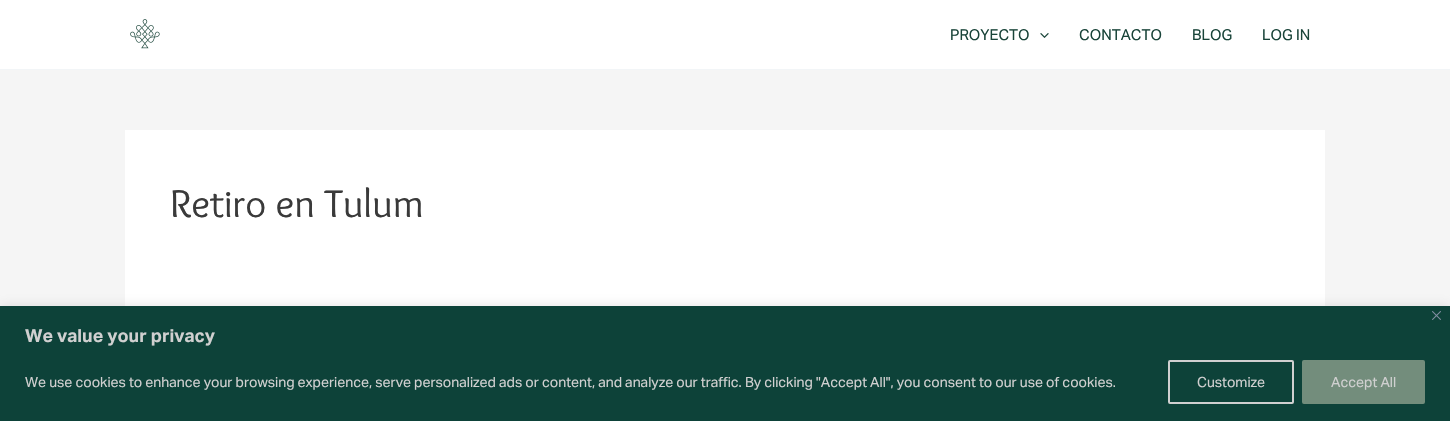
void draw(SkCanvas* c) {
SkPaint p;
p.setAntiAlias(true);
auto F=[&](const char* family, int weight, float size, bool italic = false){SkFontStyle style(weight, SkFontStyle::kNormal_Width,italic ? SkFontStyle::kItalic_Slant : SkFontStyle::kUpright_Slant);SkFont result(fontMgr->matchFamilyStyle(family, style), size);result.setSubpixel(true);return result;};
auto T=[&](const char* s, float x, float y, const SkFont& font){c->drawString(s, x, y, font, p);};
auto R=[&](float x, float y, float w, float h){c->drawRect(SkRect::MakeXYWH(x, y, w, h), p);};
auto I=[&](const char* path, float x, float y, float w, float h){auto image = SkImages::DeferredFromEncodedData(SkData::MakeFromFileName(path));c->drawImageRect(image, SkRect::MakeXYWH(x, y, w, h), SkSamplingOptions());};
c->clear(0xfff5f5f5);
p.setColor(0xffffffff);
R(0,0,1450,69);
p.setColor(0xfff2f5f7);
R(0,69,1450,1);
I("1.png",130,19,30,30);
auto f1 = F("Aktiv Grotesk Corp",400,15);
p.setColor(0xff194439);
T("PROYECTO",950,40,f1);
I("2.png",1040,33,9,5);
T("CONTACTO",1079,40,f1);
T("BLOG",1192,40,f1);
T("LOG IN",1262,40,f1);
p.setColor(0xffffffff);
R(125,130,1200,176);
auto f2 = F("Overlock",400,40);
p.setColor(0xff3a3a3a);
T("Retiro en Tulum",170,217,f2);
p.setColor(0x4dacabab);
p.setMaskFilter(SkMaskFilter::MakeBlur(kNormal_SkBlurStyle, 5));
c->drawRect(SkRect::MakeXYWH(0,305,1450,115),p);
p.setMaskFilter(nullptr);
p.setColor(0xff0d4239);
R(0,306,1450,115);
I("3.png",1432,311,9,9);
auto f3 = F("Aktiv Grotesk Corp",700,18);
p.setColor(0xffd0d0d0);
T("We value your privacy",25,342,f3);
auto f4 = F("Aktiv Grotesk Corp",400,14);
T("We use cookies to enhance your browsing experience, serve personalized ads or content, and analyze our traffic. By clicking \"Accept All\", you consent to our use of cookies.",25,387,f4);
p.setStroke(true);
p.setStrokeWidth(2);
c->drawRoundRect(SkRect::MakeXYWH(1169,361,124,42),1,1,p);
p.setStroke(false);
T("Customize",1197,387,f4);
p.setColor(0xff738d7c);
c->drawRoundRect(SkRect::MakeXYWH(1303,361,121,42),1,1,p);
p.setStroke(true);
c->drawRoundRect(SkRect::MakeXYWH(1303,361,121,42),1,1,p);
p.setStroke(false);
p.setColor(0xffd0d0d0);
T("Accept All",1331,387,f4);
}
